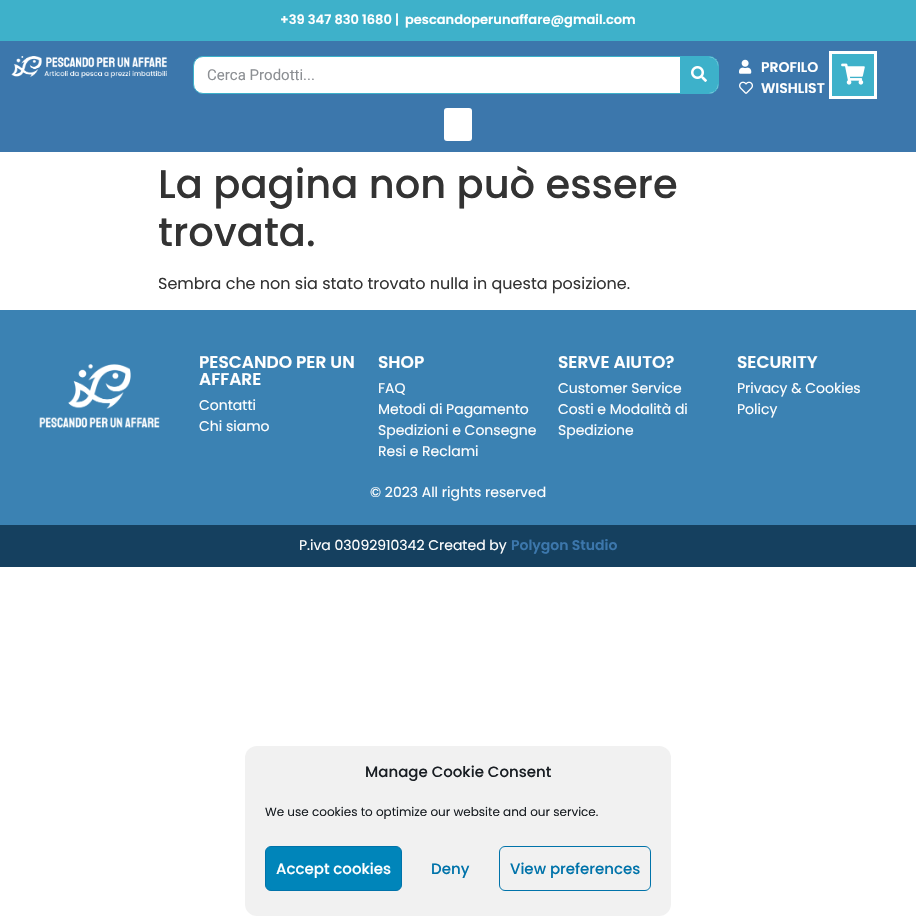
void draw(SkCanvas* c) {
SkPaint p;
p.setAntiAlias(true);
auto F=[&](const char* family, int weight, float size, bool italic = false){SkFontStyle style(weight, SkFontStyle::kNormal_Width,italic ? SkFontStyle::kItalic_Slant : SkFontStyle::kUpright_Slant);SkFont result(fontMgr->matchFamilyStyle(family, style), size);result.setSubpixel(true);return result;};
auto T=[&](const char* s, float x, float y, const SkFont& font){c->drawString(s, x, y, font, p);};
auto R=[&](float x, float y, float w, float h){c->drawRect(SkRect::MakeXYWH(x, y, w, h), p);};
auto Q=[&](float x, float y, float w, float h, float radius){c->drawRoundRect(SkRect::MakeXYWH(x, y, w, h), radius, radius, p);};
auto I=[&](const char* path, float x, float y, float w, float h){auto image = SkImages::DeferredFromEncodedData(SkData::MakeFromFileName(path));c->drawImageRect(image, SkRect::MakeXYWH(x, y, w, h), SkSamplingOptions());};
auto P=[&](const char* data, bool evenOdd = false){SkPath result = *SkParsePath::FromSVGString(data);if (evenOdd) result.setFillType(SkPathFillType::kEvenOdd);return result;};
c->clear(0xffffffff);
p.setColor(0xff3eb1ca);
R(0,0,916,41);
auto f1 = F("Poppins",600,13);
p.setColor(0xffffffff);
T("+39 347 830 1680 |",280,24,f1);
T("pescandoperunaffare@gmail.com",405,24,f1);
p.setColor(0xff3c77ac);
R(0,41,916,111);
I("1.png",11,56,156,22);
p.setColor(0xffffffff);
c->drawRoundRect(SkRect::MakeXYWH(193.5,56.5,525,37),9.5,9.5,p);
p.setStroke(true);
p.setStrokeWidth(1);
p.setColor(0xff3db1ca);
c->drawRoundRect(SkRect::MakeXYWH(193.5,56.5,525,37),9.5,9.5,p);
auto f2 = F("Roboto",400,15);
p.setStroke(false);
p.setColor(0xff8c8f93);
T("Cerca Prodotti...",207,80,f2);
p.setColor(0xff3db1ca);
c->drawPath(P("M680 57h29c5 0 9 4 9 9v18c0 5-4 9-9 9h-29z"),p);
I("2.png",691,66,16,16);
I("3.png",739,59,13,15);
auto f3 = F("Poppins",600,14);
p.setColor(0xffffffff);
T("PROFILO",761,72,f3);
I("4.png",739,81,14,13);
T("WISHLIST",761,93,f3);
p.setColor(0xff3eb1ca);
c->drawRect(SkRect::MakeXYWH(830.5,52.5,45,45),p);
p.setStroke(true);
p.setStrokeWidth(3);
p.setColor(0xffffffff);
c->drawRect(SkRect::MakeXYWH(830.5,52.5,45,45),p);
I("5.png",841,63,24,22);
p.setStroke(false);
Q(444,108,28,33,3);
auto f4 = F("Poppins",500,40);
p.setColor(0xff333333);
T("La pagina non può essere",158,198,f4);
T("trovata.",158,246,f4);
auto f5 = F("Poppins",400,16);
T("Sembra che non sia stato trovato nulla in questa posizione.",158,289,f5);
p.setColor(0xff3b82b3);
R(0,310,916,215);
I("6.png",39,364,121,64);
auto f6 = F("Poppins",600,17);
p.setColor(0xffffffff);
T("PESCANDO PER UN",199,368,f6);
T("AFFARE",199,385,f6);
auto f7 = F("Poppins",400,14);
T("Contatti",199,410,f7);
T("Chi siamo",199,431,f7);
T("SHOP",378,368,f6);
T("FAQ",378,393,f7);
T("Metodi di Pagamento",378,414,f7);
T("Spedizioni e Consegne",378,435,f7);
T("Resi e Reclami",378,456,f7);
T("SERVE AIUTO?",558,368,f6);
T("Customer Service",558,393,f7);
T("Costi e Modalità di",558,414,f7);
T("Spedizione",558,435,f7);
T("SECURITY",737,368,f6);
T("Privacy & Cookies",737,393,f7);
T("Policy",737,414,f7);
T("© 2023 All rights reserved",370,497,f7);
p.setColor(0xff15405f);
R(0,525,916,42);
p.setColor(0xffffffff);
T("P.iva 03092910342 Created by",299,550,f7);
p.setColor(0xff3c77ac);
T("Polygon Studio",511,550,f3);
p.setColor(0xfff1f1f1);
Q(245,746,426,170,12);
auto f8 = F("Poppins",500,15);
p.setColor(0xff191e23);
T("Manage Cookie Consent",365,777,f8);
auto f9 = F("Poppins",400,12);
T("We use cookies to optimize our website and our service.",265,816,f9);
p.setColor(0xff0085ba);
c->drawRoundRect(SkRect::MakeXYWH(265.5,846.5,136,44),5.5,5.5,p);
p.setStroke(true);
p.setStrokeWidth(1);
p.setColor(0xff0073aa);
c->drawRoundRect(SkRect::MakeXYWH(265.5,846.5,136,44),5.5,5.5,p);
p.setStroke(false);
p.setColor(0xffffffff);
T("Accept cookies",276,874,f8);
p.setColor(0xff0073aa);
T("Deny",431,874,f8);
p.setStroke(true);
c->drawRoundRect(SkRect::MakeXYWH(499.5,846.5,151,44),5.5,5.5,p);
p.setStroke(false);
T("View preferences",510,874,f8);
}
